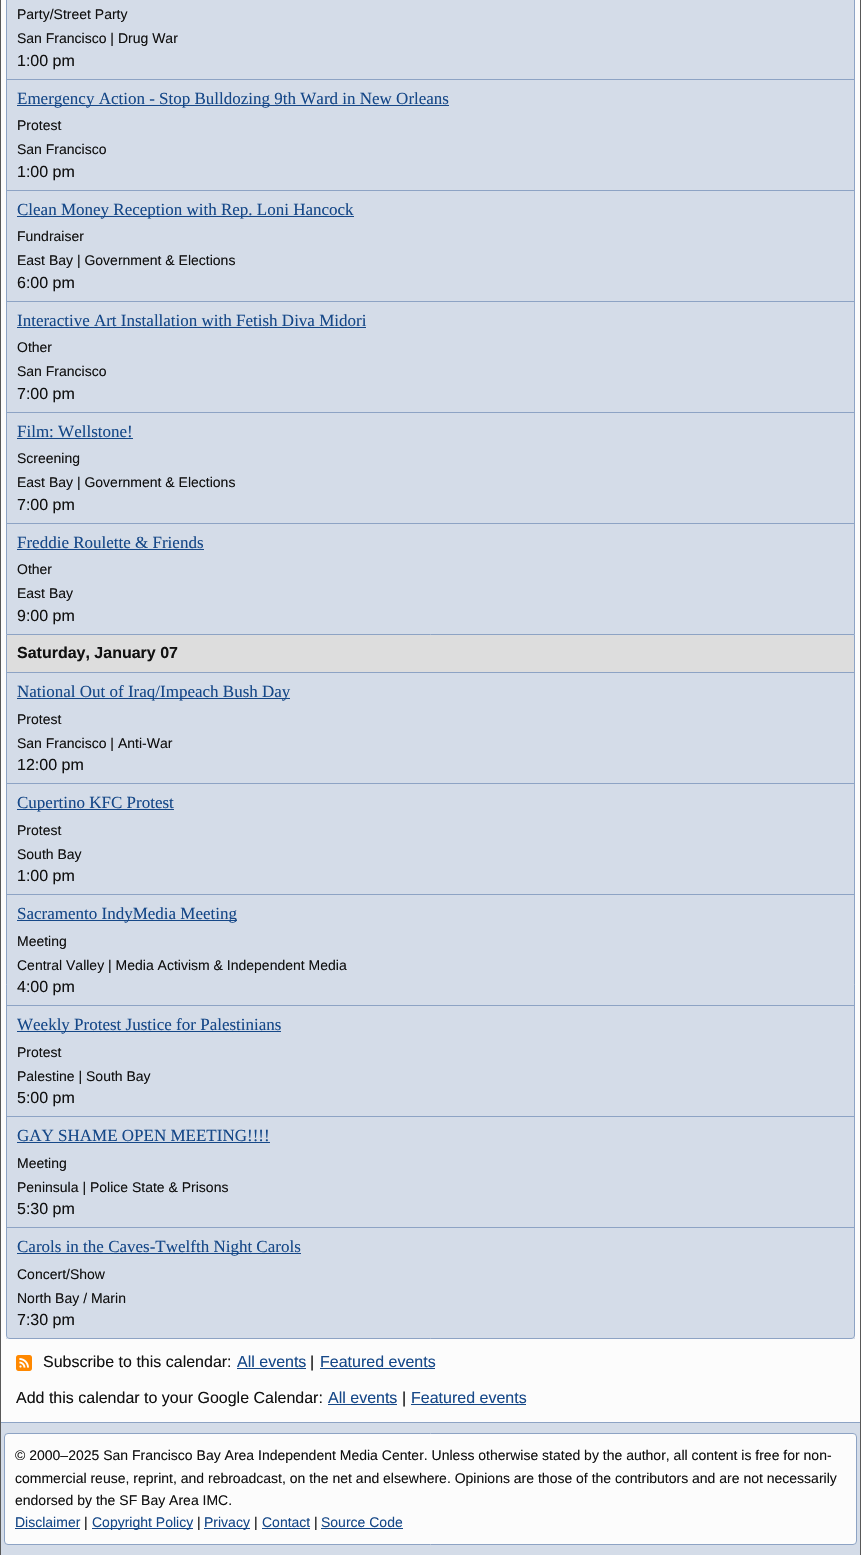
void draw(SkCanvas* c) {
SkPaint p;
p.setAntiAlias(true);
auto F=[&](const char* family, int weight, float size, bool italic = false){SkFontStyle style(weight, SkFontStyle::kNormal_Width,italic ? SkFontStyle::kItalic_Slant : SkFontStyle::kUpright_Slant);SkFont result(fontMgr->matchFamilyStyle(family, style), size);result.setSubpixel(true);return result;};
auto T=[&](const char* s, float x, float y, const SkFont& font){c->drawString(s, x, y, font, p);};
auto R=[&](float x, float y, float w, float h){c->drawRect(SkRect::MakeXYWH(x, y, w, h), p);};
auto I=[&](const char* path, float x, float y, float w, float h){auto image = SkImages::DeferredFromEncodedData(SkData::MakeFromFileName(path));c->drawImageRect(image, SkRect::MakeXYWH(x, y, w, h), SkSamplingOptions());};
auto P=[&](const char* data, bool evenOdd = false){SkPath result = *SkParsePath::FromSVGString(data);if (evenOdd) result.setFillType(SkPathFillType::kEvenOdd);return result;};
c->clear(0xfffcfcfc);
p.setColor(0xff585858);
R(860,0,1,1555);
R(0,0,1,1555);
p.setColor(0xffd4dce8);
R(6,0,849,1339);
p.setColor(0xff8da3c4);
R(854,0,1,634);
R(6,0,1,634);
R(7,79,847,1);
auto f1 = F("Liberation Sans",400,14);
p.setColor(0xff111111);
T("Party/Street Party",17,19,f1);
T("San Francisco | Drug War",17,43,f1);
auto f2 = F("Liberation Sans",400,16);
T("1:00 pm",17,66,f2);
p.setColor(0xff8da3c4);
R(7,190,847,1);
p.setColor(0xff164888);
R(17,105,432,1);
auto f3 = F("Liberation Serif",400,17);
T("Emergency Action - Stop Bulldozing 9th Ward in New Orleans",17,104,f3);
p.setColor(0xff111111);
T("Protest",17,130,f1);
T("San Francisco",17,154,f1);
T("1:00 pm",17,177,f2);
p.setColor(0xff8da3c4);
R(7,301,847,1);
p.setColor(0xff164888);
R(17,216,337,1);
T("Clean Money Reception with Rep. Loni Hancock",17,215,f3);
p.setColor(0xff111111);
T("Fundraiser",17,241,f1);
T("East Bay | Government & Elections",17,265,f1);
T("6:00 pm",17,288,f2);
p.setColor(0xff8da3c4);
R(7,412,847,1);
p.setColor(0xff164888);
T("Interactive Art Installation with Fetish Diva Midori",17,326,f3);
R(17,327,349,1);
p.setColor(0xff111111);
T("Other",17,352,f1);
T("San Francisco",17,376,f1);
T("7:00 pm",17,399,f2);
p.setColor(0xff8da3c4);
R(7,523,847,1);
p.setColor(0xff164888);
T("Film: Wellstone!",17,437,f3);
R(17,438,116,1);
p.setColor(0xff111111);
T("Screening",17,463,f1);
T("East Bay | Government & Elections",17,487,f1);
T("7:00 pm",17,510,f2);
p.setColor(0xff164888);
T("Freddie Roulette & Friends",17,548,f3);
R(17,549,187,1);
p.setColor(0xff111111);
T("Other",17,574,f1);
T("East Bay",17,598,f1);
T("9:00 pm",17,621,f2);
p.setStroke(true);
p.setStrokeWidth(1);
p.setColor(0xff8da3c4);
c->drawPath(P("M6.5 634.5h848v700.5c0 2-1.5 3.5-3.5 3.5h-841c-2 0-3.5-1.5-3.5-3.5z"),p);
p.setStroke(false);
p.setColor(0xffdddddd);
c->drawPath(P("M7 635h843c2 0 4 2 4 4v34h-847z"),p);
p.setColor(0xff8da3c4);
R(7,672,847,1);
auto f4 = F("Liberation Sans",700,16);
p.setColor(0xff111111);
T("Saturday, January 07",17,658,f4);
p.setColor(0xff8da3c4);
R(7,783,847,1);
p.setColor(0xff164888);
R(17,698,273,1);
T("National Out of Iraq/Impeach Bush Day",17,697,f3);
p.setColor(0xff111111);
T("Protest",17,724,f1);
T("San Francisco | Anti-War",17,748,f1);
T("12:00 pm",17,770,f2);
p.setColor(0xff8da3c4);
R(7,894,847,1);
p.setColor(0xff164888);
R(17,809,157,1);
T("Cupertino KFC Protest",17,808,f3);
p.setColor(0xff111111);
T("Protest",17,835,f1);
T("South Bay",17,859,f1);
T("1:00 pm",17,881,f2);
p.setColor(0xff8da3c4);
R(7,1005,847,1);
p.setColor(0xff164888);
R(17,920,220,1);
T("Sacramento IndyMedia Meeting",17,919,f3);
p.setColor(0xff111111);
T("Meeting",17,946,f1);
T("Central Valley | Media Activism & Independent Media",17,970,f1);
T("4:00 pm",17,992,f2);
p.setColor(0xff8da3c4);
R(7,1116,847,1);
p.setColor(0xff164888);
R(17,1031,264,1);
T("Weekly Protest Justice for Palestinians",17,1030,f3);
p.setColor(0xff111111);
T("Protest",17,1057,f1);
T("Palestine | South Bay",17,1081,f1);
T("5:00 pm",17,1103,f2);
p.setColor(0xff8da3c4);
R(7,1227,847,1);
p.setColor(0xff164888);
T("GAY SHAME OPEN MEETING!!!!",17,1141,f3);
R(17,1142,253,1);
p.setColor(0xff111111);
T("Meeting",17,1168,f1);
T("Peninsula | Police State & Prisons",17,1192,f1);
T("5:30 pm",17,1214,f2);
p.setColor(0xff164888);
R(17,1253,284,1);
T("Carols in the Caves-Twelfth Night Carols",17,1252,f3);
p.setColor(0xff111111);
T("Concert/Show",17,1279,f1);
T("North Bay / Marin",17,1303,f1);
T("7:30 pm",17,1325,f2);
I("1.png",16,1355,16,16);
T("Subscribe to this calendar:",43,1367,f2);
p.setColor(0xff164888);
T("All events",237,1367,f2);
R(237,1368,69,1);
p.setColor(0xff111111);
T("|",310,1367,f2);
p.setColor(0xff164888);
T("Featured events",320,1367,f2);
R(320,1368,115,1);
p.setColor(0xff111111);
T("Add this calendar to your Google Calendar:",16,1403,f2);
p.setColor(0xff164888);
T("All events",328,1403,f2);
R(328,1404,69,1);
p.setColor(0xff111111);
T("|",402,1403,f2);
p.setColor(0xff164888);
T("Featured events",411,1403,f2);
R(411,1404,115,1);
p.setColor(0xffd4dce8);
R(1,1423,859,132);
p.setColor(0xff8da3c4);
R(1,1422,859,1);
p.setColor(0xfffcfcfc);
c->drawRoundRect(SkRect::MakeXYWH(4.5,1433.5,852,111),3.5,3.5,p);
p.setStroke(true);
p.setColor(0xff8da3c4);
c->drawRoundRect(SkRect::MakeXYWH(4.5,1433.5,852,111),3.5,3.5,p);
p.setStroke(false);
p.setColor(0xff111111);
T("© 2000–2025 San Francisco Bay Area Independent Media Center. Unless otherwise stated by the author, all content is free for non-",15,1460,f1);
T("commercial reuse, reprint, and rebroadcast, on the net and elsewhere. Opinions are those of the contributors and are not necessarily",15,1483,f1);
T("endorsed by the SF Bay Area IMC.",15,1505,f1);
p.setColor(0xff164888);
T("Disclaimer",15,1527,f1);
R(15,1528,65,1);
p.setColor(0xff111111);
T("|",84,1527,f1);
p.setColor(0xff164888);
R(92,1528,101,1);
T("Copyright Policy",92,1527,f1);
p.setColor(0xff111111);
T("|",197,1527,f1);
p.setColor(0xff164888);
R(204,1528,46,1);
T("Privacy",204,1527,f1);
p.setColor(0xff111111);
T("|",254,1527,f1);
p.setColor(0xff164888);
T("Contact",262,1527,f1);
R(262,1528,48,1);
p.setColor(0xff111111);
T("|",314,1527,f1);
p.setColor(0xff164888);
T("Source Code",321,1527,f1);
R(321,1528,82,1);
}
